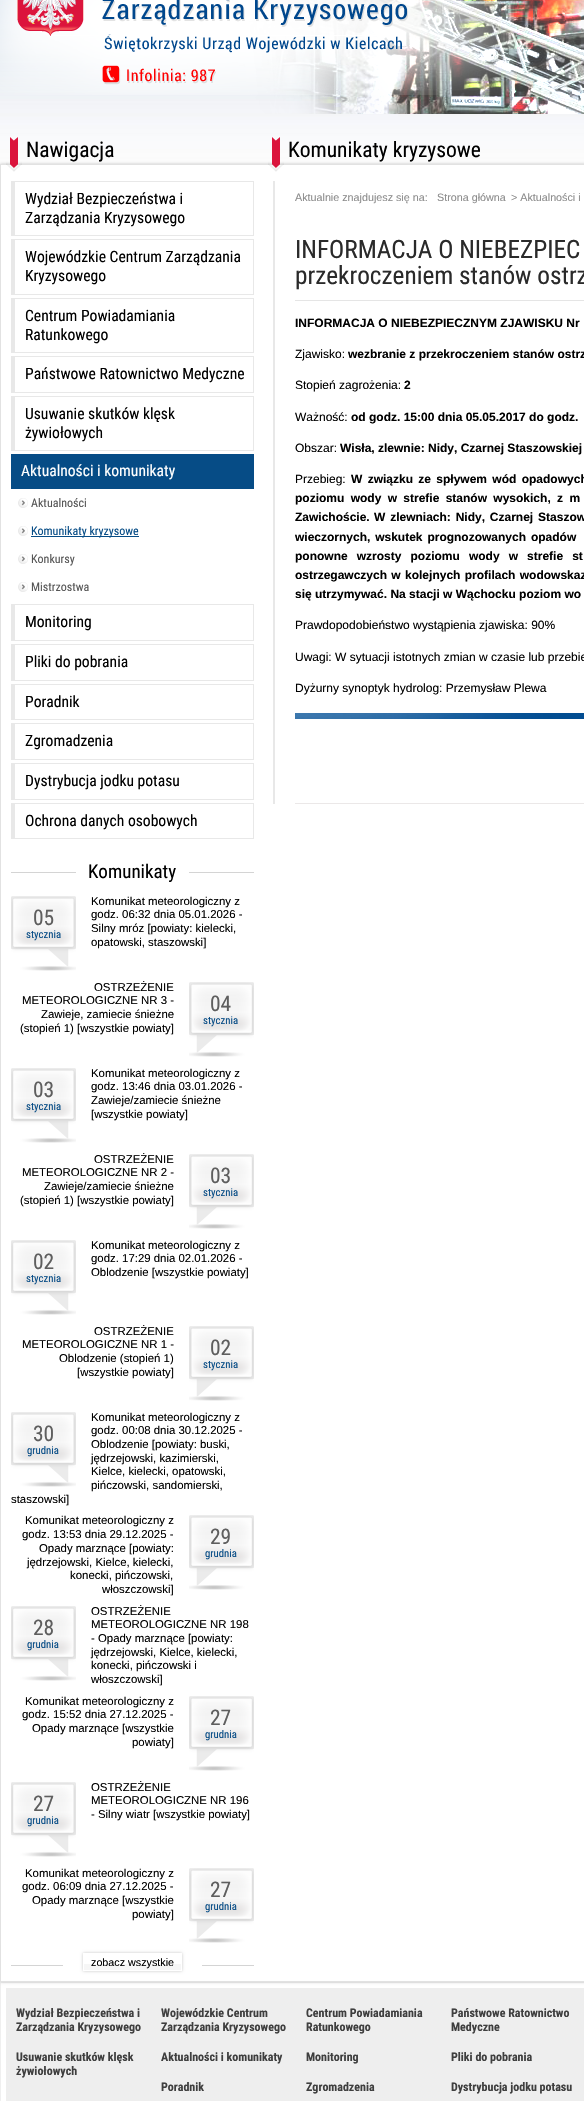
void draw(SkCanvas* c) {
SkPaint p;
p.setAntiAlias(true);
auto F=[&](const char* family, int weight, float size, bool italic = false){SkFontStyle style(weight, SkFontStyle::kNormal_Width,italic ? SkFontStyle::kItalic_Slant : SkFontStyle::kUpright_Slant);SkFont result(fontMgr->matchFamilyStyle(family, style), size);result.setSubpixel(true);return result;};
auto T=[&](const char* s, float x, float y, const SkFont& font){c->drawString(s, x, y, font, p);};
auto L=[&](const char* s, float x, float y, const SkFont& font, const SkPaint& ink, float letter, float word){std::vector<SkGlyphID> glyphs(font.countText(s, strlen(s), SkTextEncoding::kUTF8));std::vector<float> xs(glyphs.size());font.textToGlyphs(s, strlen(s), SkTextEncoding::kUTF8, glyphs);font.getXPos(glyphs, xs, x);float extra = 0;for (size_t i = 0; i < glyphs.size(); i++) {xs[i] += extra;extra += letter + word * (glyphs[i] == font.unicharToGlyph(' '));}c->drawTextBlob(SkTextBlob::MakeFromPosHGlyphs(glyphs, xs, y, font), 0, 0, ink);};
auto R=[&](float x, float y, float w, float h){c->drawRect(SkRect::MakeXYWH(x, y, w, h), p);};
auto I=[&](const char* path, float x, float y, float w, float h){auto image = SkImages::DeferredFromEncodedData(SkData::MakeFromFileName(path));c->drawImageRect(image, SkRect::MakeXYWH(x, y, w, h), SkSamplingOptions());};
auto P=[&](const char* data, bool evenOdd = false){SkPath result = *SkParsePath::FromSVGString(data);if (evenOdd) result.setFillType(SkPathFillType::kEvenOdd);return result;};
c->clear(0xffffffff);
I("1.png",0,0,584,164);
I("2.png",0,0,584,114);
p.setStroke(true);
p.setStrokeWidth(1);
p.setColor(0xffefefef);
c->drawRect(SkRect::MakeXYWH(.5,1982.5,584,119),p);
p.setStroke(false);
p.setColor(0xffc7c7c7);
p.setMaskFilter(SkMaskFilter::MakeBlur(kNormal_SkBlurStyle, 1.5));
c->drawRect(SkRect::MakeXYWH(0,164,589,1818),p);
p.setMaskFilter(nullptr);
p.setColor(0xffffffff);
c->drawRect(SkRect::MakeXYWH(.5,164.5,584,1817),p);
p.setStroke(true);
p.setColor(0xffe2e2e2);
c->drawRect(SkRect::MakeXYWH(.5,164.5,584,1817),p);
I("3.png",6,137,16,35);
auto f1 = F("Roboto Condensed",400,21.5);
p.setStroke(false);
p.setColor(0xff000000);
T("Nawigacja",26,157,f1);
p.setColor(0xffe8e8e8);
R(11,181,243,1);
R(253,181,1,55);
R(11,235,243,1);
R(11,181,4,55);
auto f2 = F("Roboto Condensed",400,15.6);
p.setColor(0xff000000);
T("Wydział Bezpieczeństwa i",25,204,f2);
T("Zarządzania Kryzysowego",25,223,f2);
p.setColor(0xffe8e8e8);
R(11,239,243,1);
R(253,239,1,56);
R(11,294,243,1);
R(11,239,4,56);
p.setColor(0xff000000);
T("Wojewódzkie Centrum Zarządzania",25,262,f2);
T("Kryzysowego",25,281,f2);
p.setColor(0xffe8e8e8);
R(11,298,243,1);
R(253,298,1,55);
R(11,352,243,1);
R(11,298,4,55);
p.setColor(0xff000000);
T("Centrum Powiadamiania",25,321,f2);
T("Ratunkowego",25,340,f2);
p.setColor(0xffe8e8e8);
R(11,356,243,1);
R(253,356,1,37);
R(11,392,243,1);
R(11,356,4,37);
p.setColor(0xff000000);
T("Państwowe Ratownictwo Medyczne",25,379,f2);
p.setColor(0xffe8e8e8);
R(11,396,243,1);
R(253,396,1,55);
R(11,450,243,1);
R(11,396,4,55);
p.setColor(0xff000000);
T("Usuwanie skutków klęsk",25,419,f2);
T("żywiołowych",25,438,f2);
p.setColor(0xff064c86);
R(11,454,243,35);
p.setColor(0xffffffff);
T("Aktualności i komunikaty",21,476,f2);
I("4.png",18,498,10,10);
auto f3 = F("Roboto Condensed",400,12);
p.setColor(0xff565656);
T("Aktualności",31,507,f3);
I("4.png",18,526,10,10);
p.setColor(0xff064c86);
R(31,536,108,1);
T("Komunikaty kryzysowe",31,535,f3);
I("4.png",18,554,10,10);
p.setColor(0xff565656);
T("Konkursy",31,563,f3);
I("4.png",18,582,10,10);
T("Mistrzostwa",31,591,f3);
p.setColor(0xffe8e8e8);
R(11,604,243,1);
R(253,604,1,37);
R(11,640,243,1);
R(11,604,4,37);
p.setColor(0xff000000);
T("Monitoring",25,627,f2);
p.setColor(0xffe8e8e8);
R(11,644,243,1);
R(253,644,1,37);
R(11,680,243,1);
R(11,644,4,37);
p.setColor(0xff000000);
T("Pliki do pobrania",25,667,f2);
p.setColor(0xffe8e8e8);
R(11,684,243,1);
R(253,684,1,36);
R(11,719,243,1);
R(11,684,4,36);
p.setColor(0xff000000);
T("Poradnik",25,707,f2);
p.setColor(0xffe8e8e8);
R(11,723,243,1);
R(253,723,1,37);
R(11,759,243,1);
R(11,723,4,37);
p.setColor(0xff000000);
T("Zgromadzenia",25,746,f2);
p.setColor(0xffe8e8e8);
R(11,763,243,1);
R(253,763,1,37);
R(11,799,243,1);
R(11,763,4,37);
p.setColor(0xff000000);
T("Dystrybucja jodku potasu",25,786,f2);
p.setColor(0xffe8e8e8);
R(11,803,243,1);
R(253,803,1,36);
R(11,838,243,1);
R(11,803,4,36);
p.setColor(0xff000000);
T("Ochrona danych osobowych",25,826,f2);
p.setColor(0xffd4d4d4);
R(11,872,243,1);
p.setColor(0xffffffff);
R(76,872,113,1);
auto f4 = F("Roboto Condensed",400,19);
p.setColor(0xff000000);
T("Komunikaty",88,878,f4);
I("5.png",11,896,65,75);
p.setColor(0xff5e5e5e);
T("05",33,925,f1);
auto f5 = F("Roboto Condensed",400,10.75);
p.setColor(0xff064c86);
T("stycznia",26,938,f5);
auto f6 = F("Liberation Sans",400,11.4);
p.setColor(0xff000000);
T("Komunikat meteorologiczny z",91,905,f6);
T("godz. 06:32 dnia 05.01.2026 -",91,918,f6);
T("Silny mróz [powiaty: kielecki,",91,932,f6);
T("opatowski, staszowski]",91,946,f6);
T("OSTRZEŻENIE",94,991,f6);
T("METEOROLOGICZNE NR 3 -",22,1004,f6);
T("Zawieje, zamiecie śnieżne",41,1018,f6);
T("(stopień 1) [wszystkie powiaty]",20,1032,f6);
I("6.png",189,982,65,75);
p.setColor(0xff5e5e5e);
T("04",210,1011,f1);
p.setColor(0xff064c86);
T("stycznia",203,1024,f5);
I("5.png",11,1068,65,75);
p.setColor(0xff5e5e5e);
T("03",33,1097,f1);
p.setColor(0xff064c86);
T("stycznia",26,1110,f5);
p.setColor(0xff000000);
T("Komunikat meteorologiczny z",91,1077,f6);
T("godz. 13:46 dnia 03.01.2026 -",91,1090,f6);
T("Zawieje/zamiecie śnieżne",91,1104,f6);
T("[wszystkie powiaty]",91,1118,f6);
T("OSTRZEŻENIE",94,1163,f6);
T("METEOROLOGICZNE NR 2 -",22,1176,f6);
T("Zawieje/zamiecie śnieżne",44,1190,f6);
T("(stopień 1) [wszystkie powiaty]",20,1204,f6);
I("6.png",189,1154,65,75);
p.setColor(0xff5e5e5e);
T("03",210,1183,f1);
p.setColor(0xff064c86);
T("stycznia",203,1196,f5);
I("5.png",11,1240,65,75);
p.setColor(0xff5e5e5e);
T("02",33,1269,f1);
p.setColor(0xff064c86);
T("stycznia",26,1282,f5);
p.setColor(0xff000000);
T("Komunikat meteorologiczny z",91,1249,f6);
T("godz. 17:29 dnia 02.01.2026 -",91,1262,f6);
T("Oblodzenie [wszystkie powiaty]",91,1276,f6);
T("OSTRZEŻENIE",94,1335,f6);
T("METEOROLOGICZNE NR 1 -",22,1348,f6);
T("Oblodzenie (stopień 1)",59,1362,f6);
T("[wszystkie powiaty]",77,1376,f6);
I("6.png",189,1326,65,75);
p.setColor(0xff5e5e5e);
T("02",210,1355,f1);
p.setColor(0xff064c86);
T("stycznia",203,1368,f5);
p.setColor(0xff000000);
T("Komunikat meteorologiczny z",91,1421,f6);
T("godz. 00:08 dnia 30.12.2025 -",91,1434,f6);
T("Oblodzenie [powiaty: buski,",91,1448,f6);
T("jędrzejowski, kazimierski,",91,1462,f6);
T("Kielce, kielecki, opatowski,",91,1475,f6);
T("pińczowski, sandomierski,",91,1489,f6);
T("staszowski]",11,1503,f6);
I("5.png",11,1412,65,75);
p.setColor(0xff5e5e5e);
T("30",33,1441,f1);
p.setColor(0xff064c86);
T("grudnia",27,1454,f5);
p.setColor(0xff000000);
T("Komunikat meteorologiczny z",25,1524,f6);
T("godz. 13:53 dnia 29.12.2025 -",22,1538,f6);
T("Opady marznące [powiaty:",39,1552,f6);
T("jędrzejowski, Kielce, kielecki,",27,1566,f6);
T("konecki, pińczowski,",70,1579,f6);
T("włoszczowski]",102,1593,f6);
I("6.png",189,1515,65,75);
p.setColor(0xff5e5e5e);
T("29",210,1544,f1);
p.setColor(0xff064c86);
T("grudnia",205,1557,f5);
I("5.png",11,1606,65,75);
p.setColor(0xff5e5e5e);
T("28",33,1635,f1);
p.setColor(0xff064c86);
T("grudnia",27,1648,f5);
p.setColor(0xff000000);
T("OSTRZEŻENIE",91,1615,f6);
T("METEOROLOGICZNE NR 198",91,1628,f6);
T("- Opady marznące [powiaty:",91,1642,f6);
T("jędrzejowski, Kielce, kielecki,",91,1656,f6);
T("konecki, pińczowski i",91,1669,f6);
T("włoszczowski]",91,1683,f6);
T("Komunikat meteorologiczny z",25,1705,f6);
T("godz. 15:52 dnia 27.12.2025 -",22,1718,f6);
T("Opady marznące [wszystkie",32,1732,f6);
T("powiaty]",132,1746,f6);
I("6.png",189,1696,65,75);
p.setColor(0xff5e5e5e);
T("27",210,1725,f1);
p.setColor(0xff064c86);
T("grudnia",205,1738,f5);
I("5.png",11,1782,65,75);
p.setColor(0xff5e5e5e);
T("27",33,1811,f1);
p.setColor(0xff064c86);
T("grudnia",27,1824,f5);
p.setColor(0xff000000);
T("OSTRZEŻENIE",91,1791,f6);
T("METEOROLOGICZNE NR 196",91,1804,f6);
T("- Silny wiatr [wszystkie powiaty]",91,1818,f6);
T("Komunikat meteorologiczny z",25,1877,f6);
T("godz. 06:09 dnia 27.12.2025 -",22,1890,f6);
T("Opady marznące [wszystkie",32,1904,f6);
T("powiaty]",132,1918,f6);
I("6.png",189,1868,65,75);
p.setColor(0xff5e5e5e);
T("27",210,1897,f1);
p.setColor(0xff064c86);
T("grudnia",205,1910,f5);
p.setColor(0xffd4d4d4);
R(11,1965,243,1);
p.setColor(0xffffffff);
R(63,1965,139,1);
c->save();
c->clipPath(P("M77 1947h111v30h-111zm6 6h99v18h-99z",true),true);
p.setColor(0xffc7c7c7);
p.setMaskFilter(SkMaskFilter::MakeBlur(kNormal_SkBlurStyle, 1.5));
c->drawRect(SkRect::MakeXYWH(83,1953,99,18),p);
p.setMaskFilter(nullptr);
c->restore();
p.setColor(0xfff6f6f6);
R(83,1964,99,6);
p.setStroke(true);
p.setColor(0xffffffff);
c->drawRect(SkRect::MakeXYWH(83.5,1953.5,98,17),p);
auto f7 = F("Liberation Sans",400,10.75);
p.setStroke(false);
p.setColor(0xff000000);
T("zobacz wszystkie",91,1966,f7);
I("3.png",268,137,16,35);
T("Komunikaty kryzysowe",288,157,f1);
p.setColor(0xffe8e8e8);
R(273,181,2,623);
p.setColor(0xff8c8c8c);
T("Aktualnie znajdujesz się na:",295,201,f7);
T("Strona główna",437,201,f7);
T("> Aktualności i",511,201,f7);
p.setColor(0xffe5e5e5);
R(295,300,289,1);
auto f8 = F("Roboto Condensed",400,25.25);
p.setColor(0xff2a2a2a);
T("INFORMACJA O NIEBEZPIEC",295,258,f8);
T("przekroczeniem stanów ostrz",295,284,f8);
auto f9 = F("Liberation Sans",700,12);
p.setColor(0xff000000);
T("INFORMACJA O NIEBEZPIECZNYM ZJAWISKU Nr",295,327,f9);
auto f10 = F("Liberation Sans",400,12);
T("Zjawisko:",295,358,f10);
T("wezbranie z przekroczeniem stanów ostrz",348,358,f9);
T("Stopień zagrożenia:",295,389,f10);
T("2",404,389,f9);
T("Ważność:",295,421,f10);
T("od godz. 15:00 dnia 05.05.2017 do godz.",351,421,f9);
T("Obszar:",295,452,f10);
T("Wisła, zlewnie: Nidy, Czarnej Staszowskiej",340,452,f9);
T("Przebieg:",295,483,f10);
L("W związku ze spływem wód opadowych",351,483,f9,p,0,2);
L("poziomu wody w strefie stanów wysokich, z m",295,502,f9,p,0,3);
T("Zawichoście.",295,521,f9);
L("W zlewniach: Nidy, Czarnej Staszow",374,521,f9,p,0,1.5);
L("wieczornych, wskutek prognozowanych opadów",295,541,f9,p,0,1.5);
L("ponowne wzrosty poziomu wody w strefie st",295,560,f9,p,0,5.75);
L("ostrzegawczych w kolejnych profilach wodowskaz",295,579,f9,p,0,1);
T("się utrzymywać. Na stacji w Wąchocku poziom wo",295,598,f9);
T("Prawdopodobieństwo wystąpienia zjawiska: 90%",295,629,f10);
T("Uwagi: W sytuacji istotnych zmian w czasie lub przebie",295,661,f10);
T("Dyżurny synoptyk hydrolog: Przemysław Plewa",295,692,f10);
I("7.png",295,713,289,6);
p.setColor(0xffebe8e8);
R(295,803,289,1);
p.setColor(0xffeeeeee);
R(6,1988,578,113);
auto f11 = F("Roboto Condensed",700,12);
p.setColor(0xff3f3f3f);
T("Wydział Bezpieczeństwa i",16,2017,f11);
T("Zarządzania Kryzysowego",16,2031,f11);
T("Wojewódzkie Centrum",161,2017,f11);
T("Zarządzania Kryzysowego",161,2031,f11);
T("Centrum Powiadamiania",306,2017,f11);
T("Ratunkowego",306,2031,f11);
T("Państwowe Ratownictwo",451,2017,f11);
T("Medyczne",451,2031,f11);
T("Usuwanie skutków klęsk",16,2061,f11);
T("żywiołowych",16,2075,f11);
T("Aktualności i komunikaty",161,2061,f11);
T("Monitoring",306,2061,f11);
T("Pliki do pobrania",451,2061,f11);
T("Poradnik",161,2091,f11);
T("Zgromadzenia",306,2091,f11);
T("Dystrybucja jodku potasu",451,2091,f11);
}
